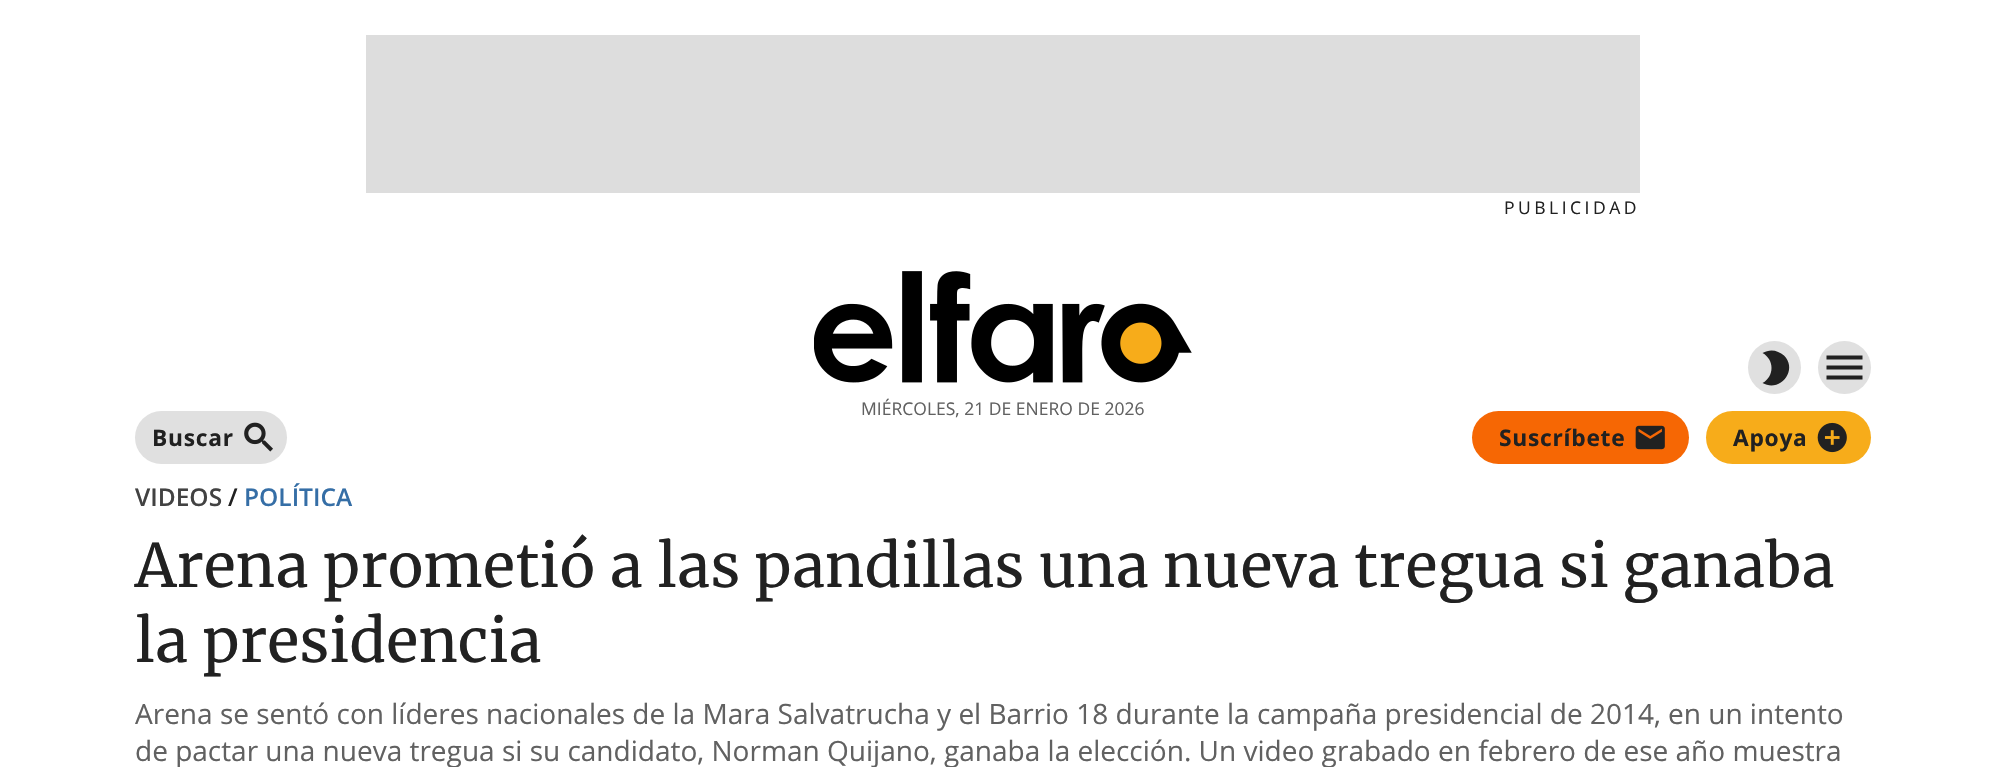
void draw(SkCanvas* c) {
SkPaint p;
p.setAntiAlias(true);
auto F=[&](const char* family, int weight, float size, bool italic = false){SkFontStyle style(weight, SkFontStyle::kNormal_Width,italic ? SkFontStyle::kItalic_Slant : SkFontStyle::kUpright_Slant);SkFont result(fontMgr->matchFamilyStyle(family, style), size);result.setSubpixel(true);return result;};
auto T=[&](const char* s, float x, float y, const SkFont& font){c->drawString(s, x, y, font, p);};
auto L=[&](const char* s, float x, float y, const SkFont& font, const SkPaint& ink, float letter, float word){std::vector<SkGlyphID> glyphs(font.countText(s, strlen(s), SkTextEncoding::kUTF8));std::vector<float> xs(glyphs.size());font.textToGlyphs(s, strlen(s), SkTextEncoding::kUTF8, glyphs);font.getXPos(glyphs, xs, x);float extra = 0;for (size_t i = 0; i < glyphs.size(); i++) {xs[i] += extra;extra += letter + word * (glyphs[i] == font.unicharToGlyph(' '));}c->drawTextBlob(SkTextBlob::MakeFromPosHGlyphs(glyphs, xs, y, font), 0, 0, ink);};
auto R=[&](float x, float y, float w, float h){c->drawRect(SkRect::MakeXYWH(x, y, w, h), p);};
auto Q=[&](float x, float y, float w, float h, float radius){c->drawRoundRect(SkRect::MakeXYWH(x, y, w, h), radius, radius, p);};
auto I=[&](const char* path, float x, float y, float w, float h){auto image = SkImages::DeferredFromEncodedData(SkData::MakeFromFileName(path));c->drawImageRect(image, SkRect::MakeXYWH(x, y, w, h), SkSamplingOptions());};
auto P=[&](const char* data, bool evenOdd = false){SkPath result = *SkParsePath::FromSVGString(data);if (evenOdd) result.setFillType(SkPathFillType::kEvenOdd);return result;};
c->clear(0xffffffff);
p.setColor(0xffdddddd);
R(366,35,1274,158);
auto f1 = F("Open Sans",400,17.5);
p.setColor(0xff212121);
L("PUBLICIDAD",1504,214,f1,p,3.5,0);
I("1.png",814,271,378,112);
p.setColor(0xff616161);
T("MIÉRCOLES, 21 DE ENERO DE 2026",861,415,f1);
p.setColor(0xffe0e0e0);
Q(135,411,152,53,26.5);
auto f2 = F("Open Sans",700,22.75);
p.setColor(0xff212121);
L("Buscar",152,446,f2,p,.75,0);
I("2.png",244,422,29,30);
p.setColor(0xffe0e0e0);
c->drawCircle(1774.5,367.5,26.5,p);
p.setColor(0xff212121);
c->drawPath(P("M1771.5 350.5c-3 0-6 1-9 2.5c12 6.5 12 23.5 0 30c17.5 10 36-13 21.5-27.5c-3.5-3-8-5-12.5-5z"),p);
p.setColor(0xffe0e0e0);
c->drawCircle(1844.5,367.5,26.5,p);
p.setColor(0xff212121);
c->drawPath(P("M1826.5 379.5h36v-4h-36zm0-10h36v-4h-36zm0-14v4h36v-4z"),p);
p.setColor(0xfff66704);
Q(1472,411,217,53,26.5);
p.setColor(0xff212121);
L("Suscríbete",1499,446,f2,p,.75,0);
I("3.png",1635,425,30,25);
p.setColor(0xfff7ac1a);
Q(1706,411,165,53,26.5);
p.setColor(0xff212121);
L("Apoya",1733,446,f2,p,.75,0);
I("4.png",1817,422,30,31);
auto f3 = F("Open Sans",600,24.5);
p.setColor(0xff424242);
T("VIDEOS",135,506,f3);
p.setColor(0xff212121);
T("/",228,506,f3);
p.setColor(0xff356ea6);
T("POLÍTICA",244,506,f3);
auto f4 = F("Merriweather",400,59.5);
p.setColor(0xff212121);
T("Arena prometió a las pandillas una nueva tregua si ganaba",135,587,f4);
T("la presidencia",135,662,f4);
auto f5 = F("Open Sans",400,28);
p.setColor(0xff616161);
T("Arena se sentó con líderes nacionales de la Mara Salvatrucha y el Barrio 18 durante la campaña presidencial de 2014, en un intento",135,724,f5);
T("de pactar una nueva tregua si su candidato, Norman Quijano, ganaba la elección. Un video grabado en febrero de ese año muestra",135,761,f5);
}
